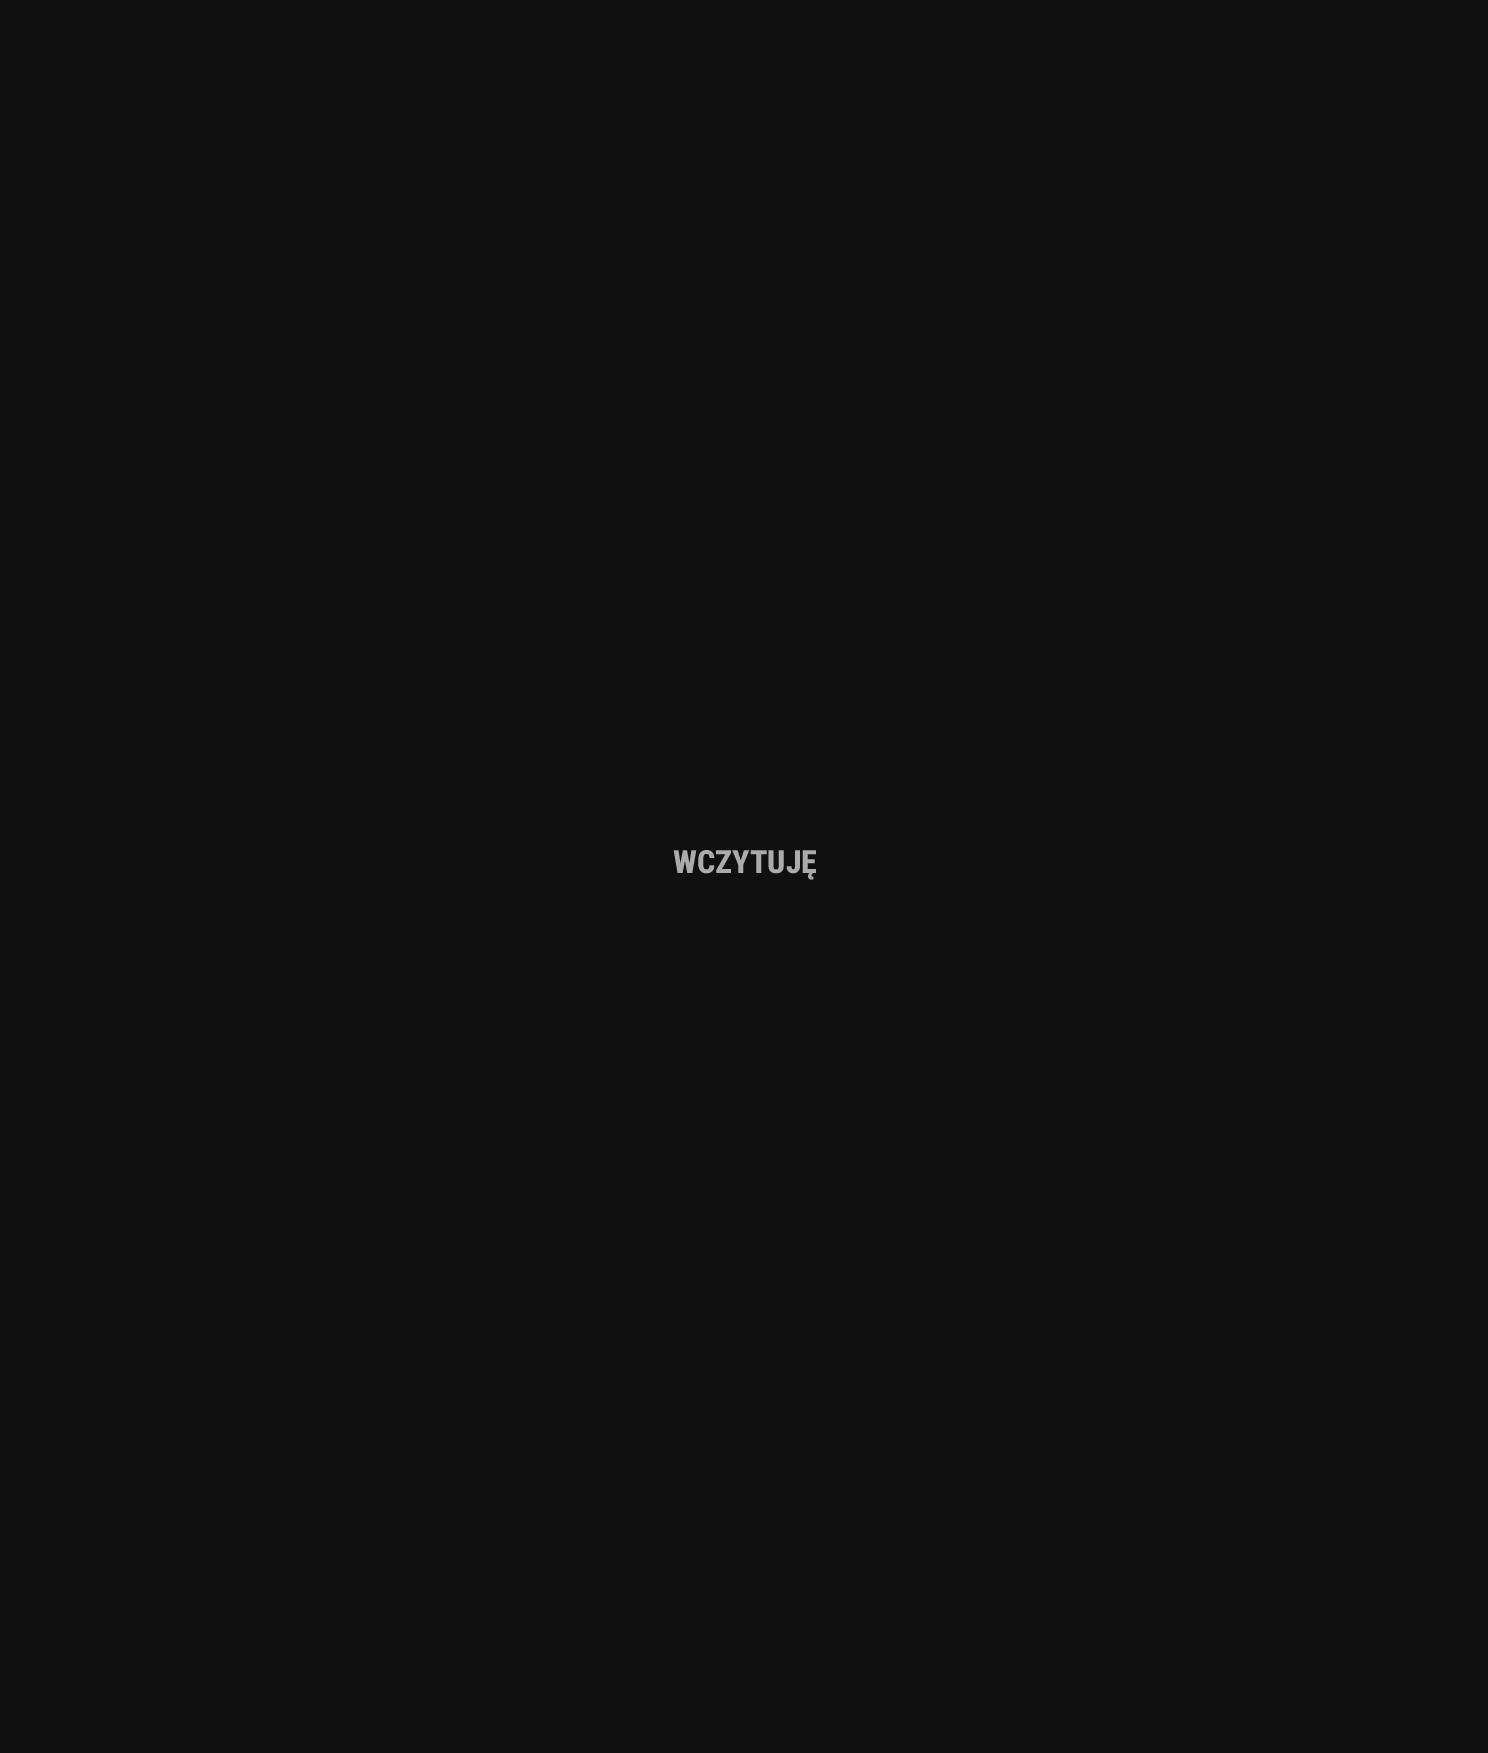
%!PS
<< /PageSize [1488 1753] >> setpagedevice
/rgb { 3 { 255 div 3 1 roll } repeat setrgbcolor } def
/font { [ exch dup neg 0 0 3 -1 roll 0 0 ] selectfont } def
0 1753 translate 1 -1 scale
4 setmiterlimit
16 16 16 rgb
0 0 1488 1753 rectfill
/RobotoCondensed-ExtraBold 32 font
171 171 171 rgb
673 873 moveto (WCZYTUJĘ) show
showpage
